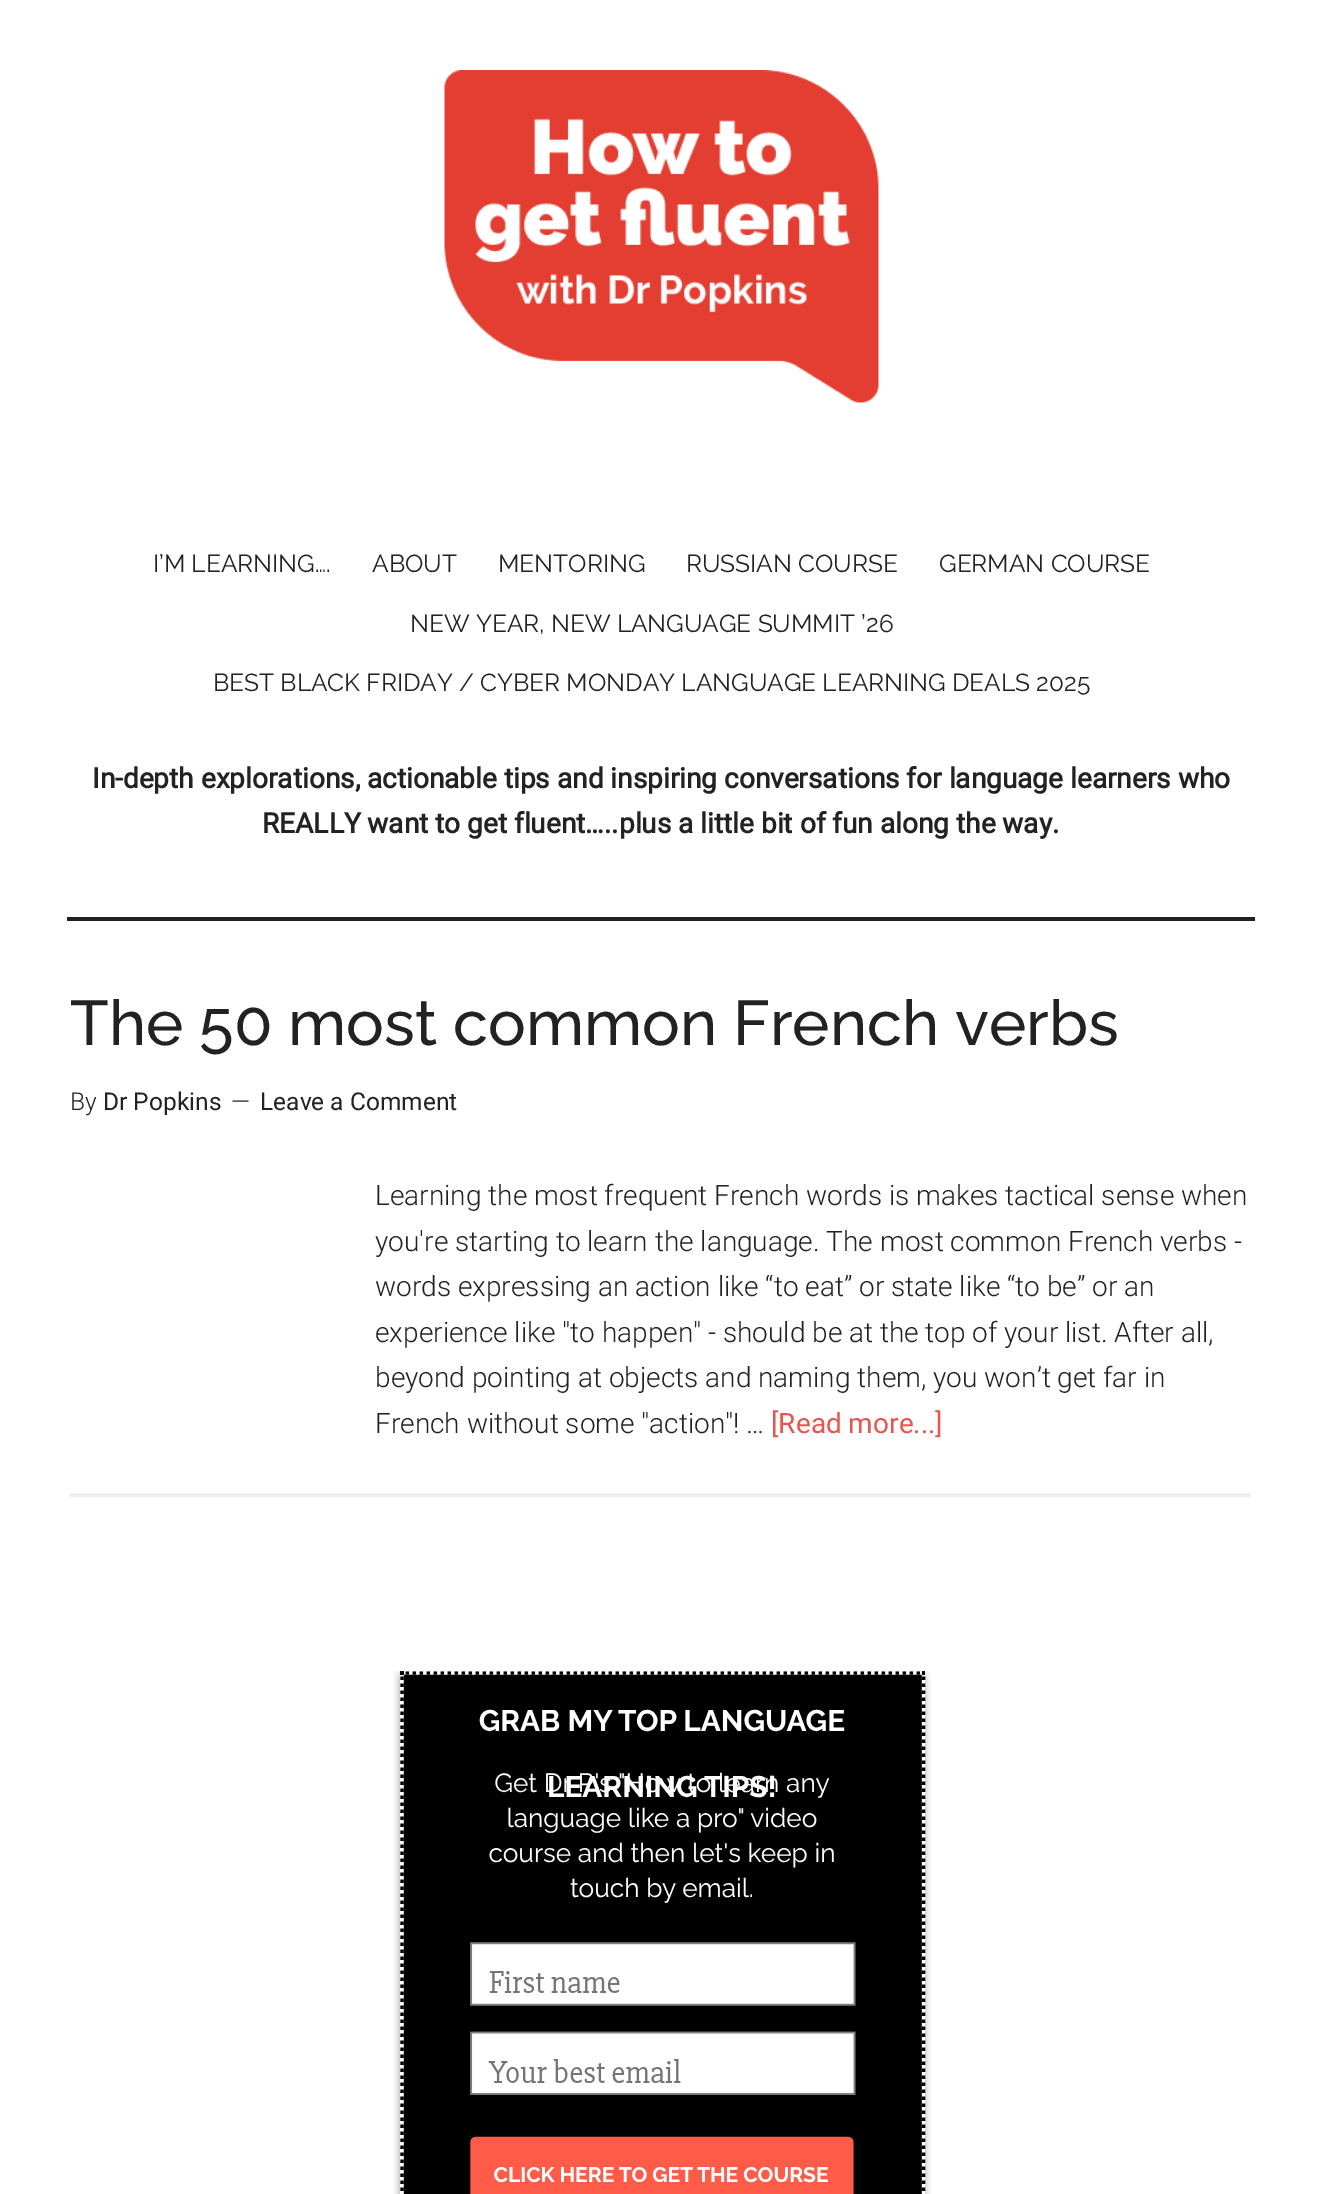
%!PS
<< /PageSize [1320 2194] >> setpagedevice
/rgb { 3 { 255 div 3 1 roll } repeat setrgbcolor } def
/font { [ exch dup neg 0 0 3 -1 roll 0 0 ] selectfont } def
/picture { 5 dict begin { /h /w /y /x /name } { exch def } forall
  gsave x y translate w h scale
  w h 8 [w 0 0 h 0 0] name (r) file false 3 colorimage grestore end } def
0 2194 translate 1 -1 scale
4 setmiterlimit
255 255 255 rgb
0 0 1320 2194 rectfill
34 34 34 rgb
67 917 1188 4 rectfill
(img/1.rgb) 444 70 435 333 picture
238 238 238 rgb
70 1493 1181 4 rectfill
(img/2.rgb) 393 1671 538 523 picture
/Raleway-Regular 24.5 font
34 34 34 rgb
[
  [(I’M LEARNING….) 153 572]
  [(ABOUT) 372 572]
  [(MENTORING) 498 572]
  [(RUSSIAN COURSE) 686 572]
  [(GERMAN COURSE) 939 572]
  [(NEW YEAR, NEW LANGUAGE SUMMIT ’26) 410 632]
  [(BEST BLACK FRIDAY / CYBER MONDAY LANGUAGE LEARNING DEALS 2025) 213 691]
] { aload pop moveto show } forall
/Roboto-Bold 28 font
92 788 moveto (In-depth explorations, actionable tips and inspiring conversations for language learners who) show
262 833 moveto (REALLY want to get fluent…..plus a little bit of fun along the way.) show
/Raleway-Medium 63 font
70 1045 moveto (The 50 most common French verbs) show
/Roboto-Light 24.5 font
70 1110 moveto (By) show
/Roboto-Regular 24.5 font
103 1110 moveto (Dr Popkins) show
/Roboto-Light 24.5 font
231 1110 moveto (—) show
/Roboto-Regular 24.5 font
260 1110 moveto (Leave a Comment) show
/Roboto-Light 28 font
[
  [(Learning the most frequent French words is makes tactical sense when) 375 1205]
  [(you're starting to learn the language. The most common French verbs -) 375 1251]
  [(words expressing an action like “to eat” or state like “to be” or an) 375 1296]
  [(experience like "to happen" - should be at the top of your list. After all,) 375 1342]
  [(beyond pointing at objects and naming them, you won’t get far in) 375 1387]
  [(French without some "action"! …) 375 1433]
] { aload pop moveto show } forall
/Roboto-Regular 28 font
232 85 78 rgb
771 1433 moveto ([Read more...]) show
showpage
